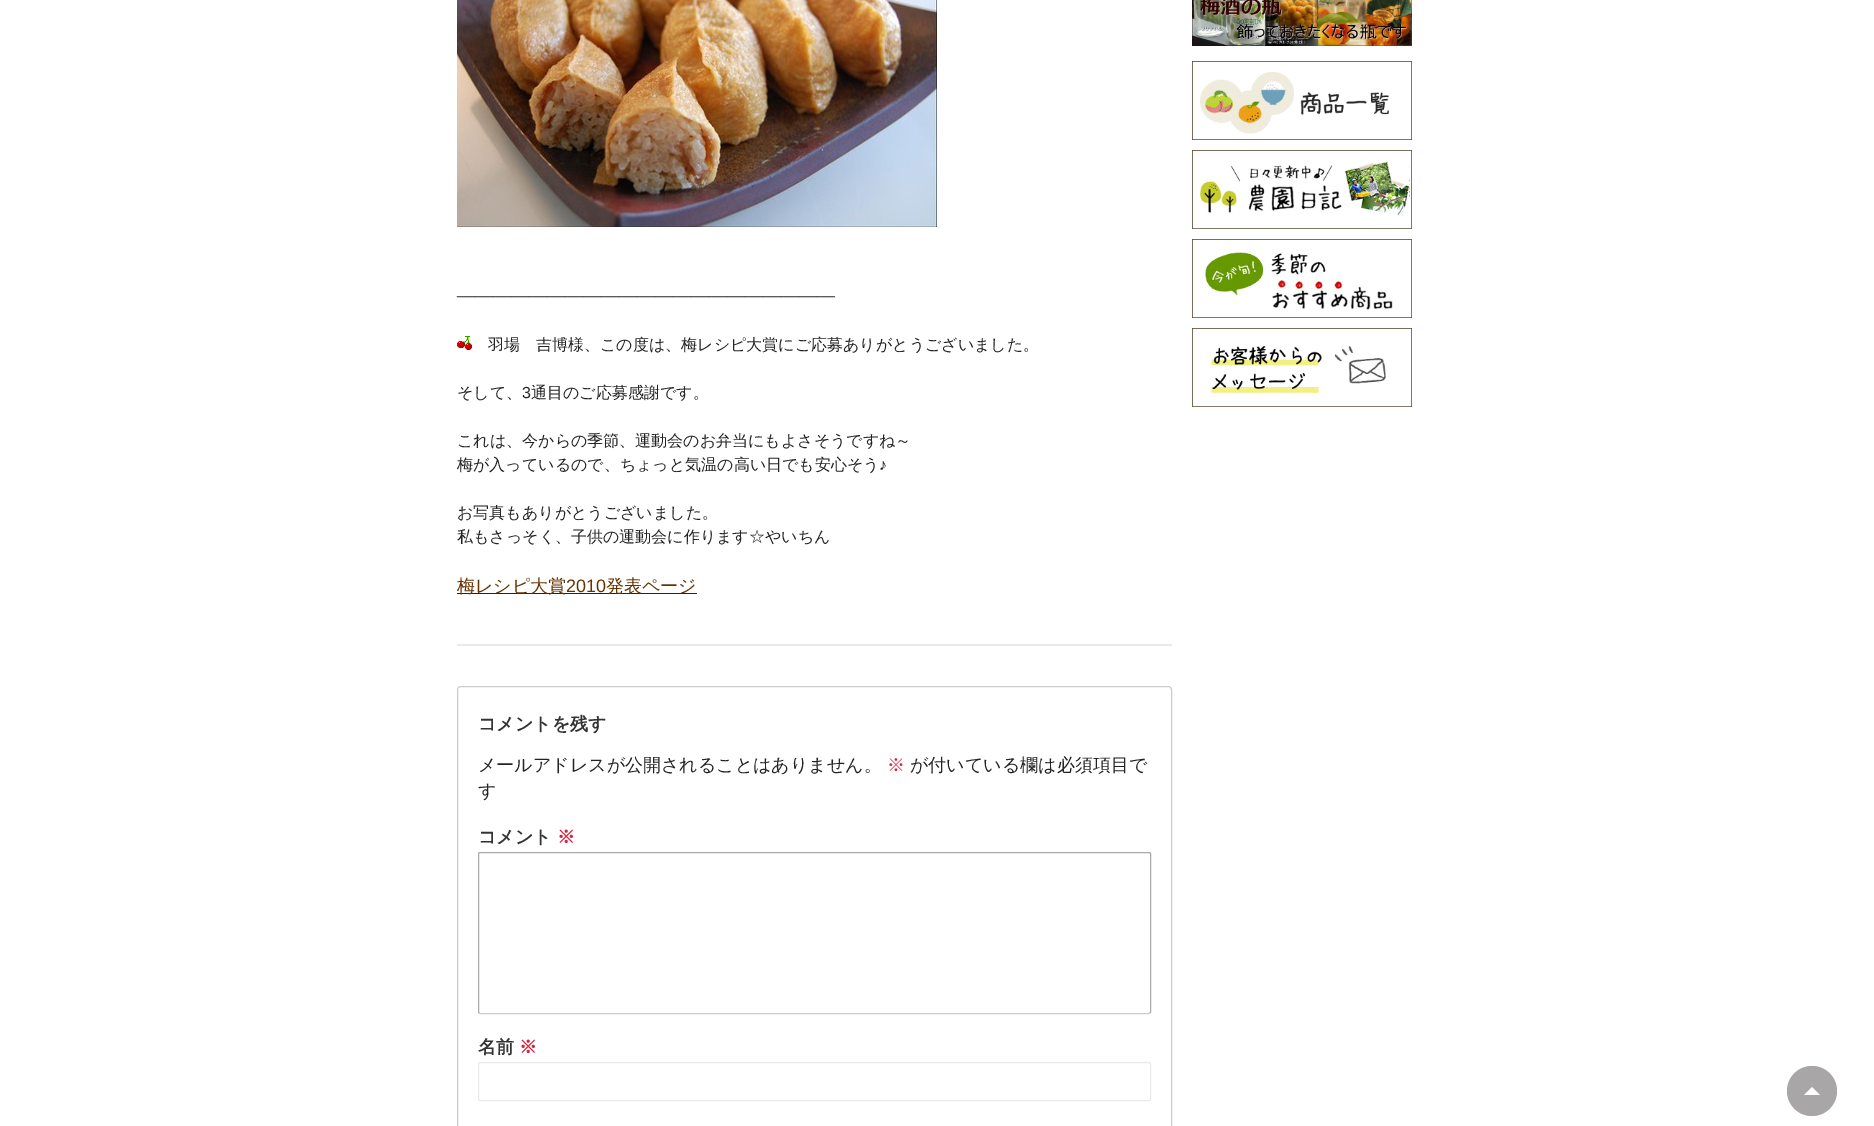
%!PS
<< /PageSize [1874 1126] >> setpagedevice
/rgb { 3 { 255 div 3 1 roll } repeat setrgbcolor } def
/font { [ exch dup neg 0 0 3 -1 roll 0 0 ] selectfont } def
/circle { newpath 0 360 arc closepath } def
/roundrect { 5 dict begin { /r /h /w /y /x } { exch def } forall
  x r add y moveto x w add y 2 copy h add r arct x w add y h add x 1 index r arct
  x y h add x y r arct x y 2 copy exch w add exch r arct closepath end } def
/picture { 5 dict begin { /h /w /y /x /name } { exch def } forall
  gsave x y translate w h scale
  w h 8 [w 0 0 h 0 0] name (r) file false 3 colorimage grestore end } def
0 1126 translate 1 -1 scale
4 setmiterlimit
255 255 255 rgb
0 0 1874 1126 rectfill
(img/1.rgb) 1192 0 220 46 picture
(img/2.rgb) 1192 61 220 79 picture
(img/3.rgb) 1192 150 220 79 picture
(img/4.rgb) 1192 239 220 79 picture
(img/5.rgb) 1192 328 220 79 picture
234 234 234 rgb
457 644 715 2 rectfill
(img/6.rgb) 457 0 480 227 picture
(img/7.rgb) 457 336 15 14 picture
35 35 35 rgb
457 593 240 1 rectfill
204 204 204 rgb
458.5 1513.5 moveto 458 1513 457.5 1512 457.5 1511 curveto 457.5 690 lineto 457.5 689 458 688 458.5 687.5 curveto 459 687 460 686.5 461 686.5 curveto 1168 686.5 lineto 1169 686.5 1170 687 1170.5 687.5 curveto 1171 688 1171.5 689 1171.5 690 curveto 1171.5 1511 lineto 1171.5 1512 1171 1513 1170.5 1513.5 curveto stroke
1150 1013 moveto 1149 1013.5 lineto 480 1013.5 lineto 479 1013 lineto stroke
170 170 170 rgb
479 1013 moveto 478.5 1012 lineto 478.5 854 lineto 478.5 853 479 852.5 480 852.5 curveto 1149 852.5 lineto 1150 852.5 1150.5 853 1150.5 854 curveto 1150.5 1012 lineto 1150 1013 lineto stroke
234 234 234 rgb
478.5 1062.5 672 38 1.5 roundrect stroke
168 166 166 rgb
1812 1091 25 circle fill
255 255 255 rgb
1820 1095 moveto 1804 1095 lineto 1812 1087 lineto closepath fill
/LiberationSerif-Regular 18 font
35 35 35 rgb
457 301 moveto (—————————————————————) show
/WenQuanYiZenHei-Medium 16 font
488 350 moveto (羽場　吉博様、この度は、梅レシピ大賞にご応募ありがとうございました。) show
457 398 moveto (そして、) show
/LiberationSans-Regular 16 font
522 398 moveto (3) show
/WenQuanYiZenHei-Medium 16 font
[
  [(通目のご応募感謝です。) 531 398]
  [(これは、今からの季節、運動会のお弁当にもよさそうですね～) 457 446]
  [(梅が入っているので、ちょっと気温の高い日でも安心そう) 457 470]
] { aload pop moveto show } forall
/LiberationSans-Regular 16 font
879 470 moveto (♪) show
/WenQuanYiZenHei-Medium 16 font
457 518 moveto (お写真もありがとうございました。) show
457 542 moveto (私もさっそく、子供の運動会に作ります☆やいちん) show
/WenQuanYiZenHei-Medium 18 font
102 51 0 rgb
457 592 moveto (梅レシピ大賞) show
/LiberationSans-Regular 18 font
566 592 moveto (2010) show
/WenQuanYiZenHei-Medium 18 font
606 592 moveto (発表ページ) show
/WenQuanYiZenHei-Bold 18 font
51 51 51 rgb
478 730 moveto (コメントを残す) show
/WenQuanYiZenHei-Medium 18 font
35 35 35 rgb
478 771 moveto (メールアドレスが公開されることはありません。) show
213 36 63 rgb
887 771 moveto (※) show
35 35 35 rgb
910 771 moveto (が付いている欄は必須項目で) show
478 797 moveto (す) show
/WenQuanYiZenHei-Bold 18 font
51 51 51 rgb
478 843 moveto (コメント) show
213 36 63 rgb
557 843 moveto (※) show
51 51 51 rgb
478 1053 moveto (名前) show
213 36 63 rgb
519 1053 moveto (※) show
showpage
